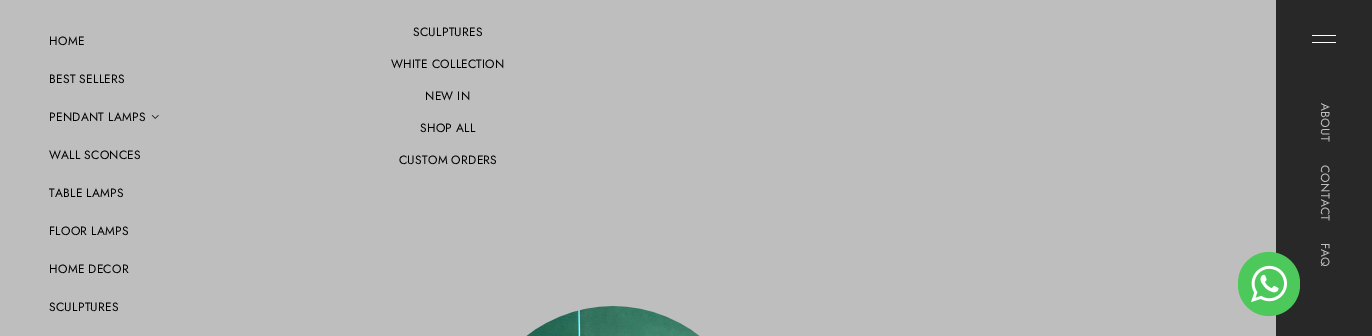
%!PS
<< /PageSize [1372 336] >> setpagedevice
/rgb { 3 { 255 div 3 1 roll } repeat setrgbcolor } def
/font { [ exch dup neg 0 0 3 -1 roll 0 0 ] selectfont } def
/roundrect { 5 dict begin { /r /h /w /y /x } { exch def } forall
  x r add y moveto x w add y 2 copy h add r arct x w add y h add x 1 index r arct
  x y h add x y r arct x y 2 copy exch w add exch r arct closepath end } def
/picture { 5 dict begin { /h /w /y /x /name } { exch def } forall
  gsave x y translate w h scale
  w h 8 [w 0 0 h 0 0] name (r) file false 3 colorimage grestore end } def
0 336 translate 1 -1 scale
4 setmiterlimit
190 190 190 rgb
0 0 1372 336 rectfill
(img/1.rgb) 151 115 8 4 picture
(img/2.rgb) 526 306 174 30 picture
40 40 40 rgb
1276 0 96 336 rectfill
255 255 255 rgb
1312 35 moveto 1312 36 lineto 1336 36 lineto 1336 35 lineto closepath 1312 43 moveto 1336 43 lineto 1336 42 lineto 1312 42 lineto closepath fill
77 201 91 rgb
1238 252 62 64 31 roundrect fill
(img/3.rgb) 1251 265 36 38 picture
/Jost-Regular 12 font
0 0 0 rgb
49 45 moveto 0.25 0 (HOME) ashow
49 83 moveto 0.25 0 (BEST SELLERS) ashow
49 121 moveto 0.25 0 (PENDANT LAMPS) ashow
49 159 moveto 0.25 0 (WALL SCONCES) ashow
49 197 moveto 0.25 0 (TABLE LAMPS) ashow
49 235 moveto 0.25 0 (FLOOR LAMPS) ashow
49 273 moveto 0.25 0 (HOME DECOR) ashow
49 311 moveto 0.25 0 (SCULPTURES) ashow
413 36 moveto 0.25 0 (SCULPTURES) ashow
391 68 moveto 0.25 0 (WHITE COLLECTION) ashow
425 100 moveto 0.25 0 (NEW IN) ashow
420 132 moveto 0.25 0 (SHOP ALL) ashow
399 164 moveto 0.25 0 (CUSTOM ORDERS) ashow
191 191 191 rgb
gsave 1321 103 translate 90 rotate 0 0 moveto 0.25 0 (ABOUT) ashow grestore
gsave 1321 165 translate 90 rotate 0 0 moveto 0.25 0 (CONTACT) ashow grestore
gsave
1316 243 17 23 rectclip
gsave 1321 243 translate 90 rotate 0 0 moveto 0.25 0 (FAQ) ashow grestore
grestore
showpage
